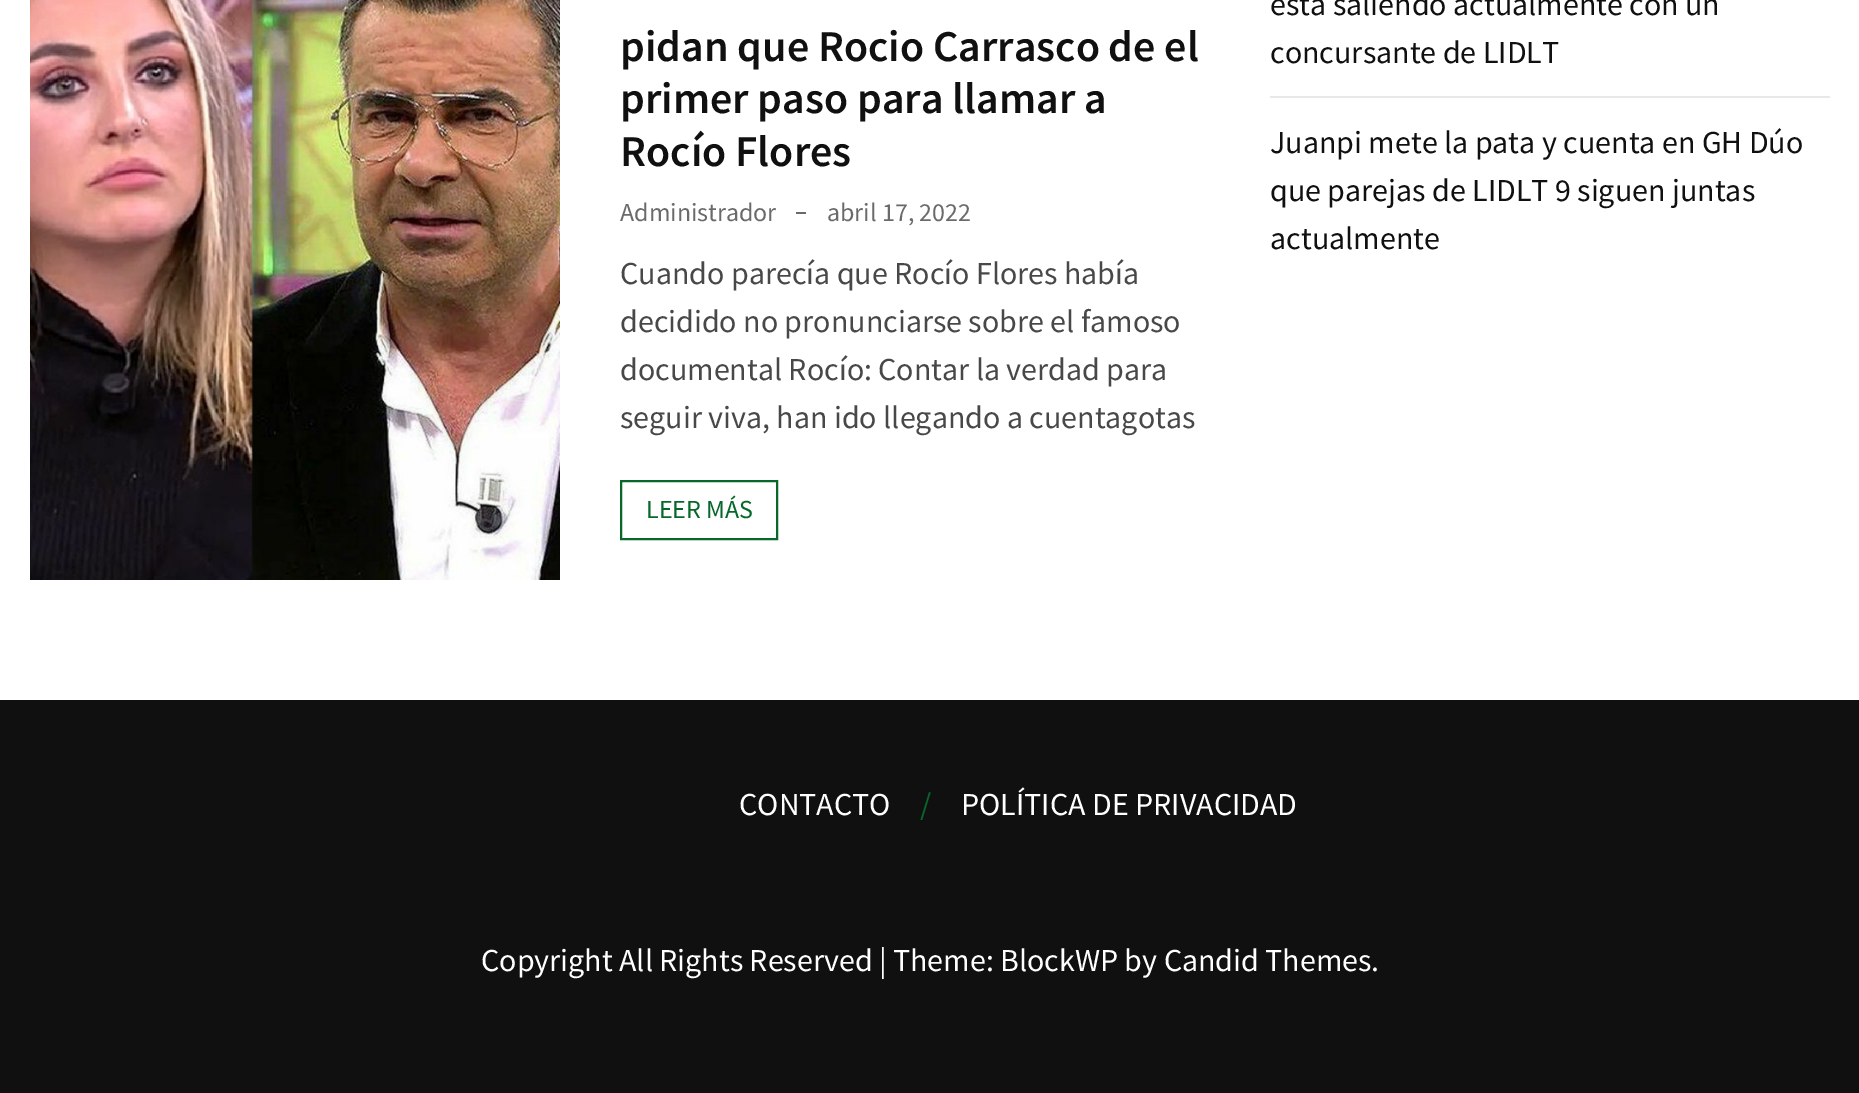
%!PS
<< /PageSize [1859 1093] >> setpagedevice
/rgb { 3 { 255 div 3 1 roll } repeat setrgbcolor } def
/font { [ exch dup neg 0 0 3 -1 roll 0 0 ] selectfont } def
/picture { 5 dict begin { /h /w /y /x /name } { exch def } forall
  gsave x y translate w h scale
  w h 8 [w 0 0 h 0 0] name (r) file false 3 colorimage grestore end } def
0 1093 translate 1 -1 scale
4 setmiterlimit
255 255 255 rgb
0 0 1859 1093 rectfill
(img/1.rgb) 30 0 530 580 picture
106 106 106 rgb
796 212 10 2 rectfill
7 104 42 rgb
2 setlinewidth
621 481 156 58 rectstroke
232 232 232 rgb
1270 96 560 2 rectfill
16 16 16 rgb
0 700 1859 393 rectfill
/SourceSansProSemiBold-SemiBold 44 font
[
  [(pidan que Rocio Carrasco de el) 620 61]
  [(primer paso para llamar a) 620 113]
  [(Rocío Flores) 620 166]
] { aload pop moveto show } forall
/SourceSansPro-Regular 26 font
106 106 106 rgb
620 221 moveto (Administrador) show
827 221 moveto (abril 17, 2022) show
/SourceSansPro-Regular 32 font
72 72 72 rgb
[
  [(Cuando parecía que Rocío Flores había) 620 284]
  [(decidido no pronunciarse sobre el famoso) 620 332]
  [(documental Rocío: Contar la verdad para) 620 380]
  [(seguir viva, han ido llegando a cuentagotas) 620 428]
] { aload pop moveto show } forall
/SourceSansPro-Regular 26 font
7 104 42 rgb
646 518 moveto (LEER MÁS) show
/SourceSansPro-Regular 32 font
16 16 16 rgb
[
  [(esta saliendo actualmente con un) 1270 15]
  [(concursante de LIDLT) 1270 63]
  [(Juanpi mete la pata y cuenta en GH Dúo) 1270 153]
  [(que parejas de LIDLT 9 siguen juntas) 1270 201]
  [(actualmente) 1270 249]
] { aload pop moveto show } forall
255 255 255 rgb
739 815 moveto (CONTACTO) show
7 104 42 rgb
920 815 moveto (/) show
255 255 255 rgb
961 815 moveto (POLÍTICA DE PRIVACIDAD) show
481 971 moveto (Copyright All Rights Reserved | Theme: BlockWP by Candid Themes.) show
showpage
